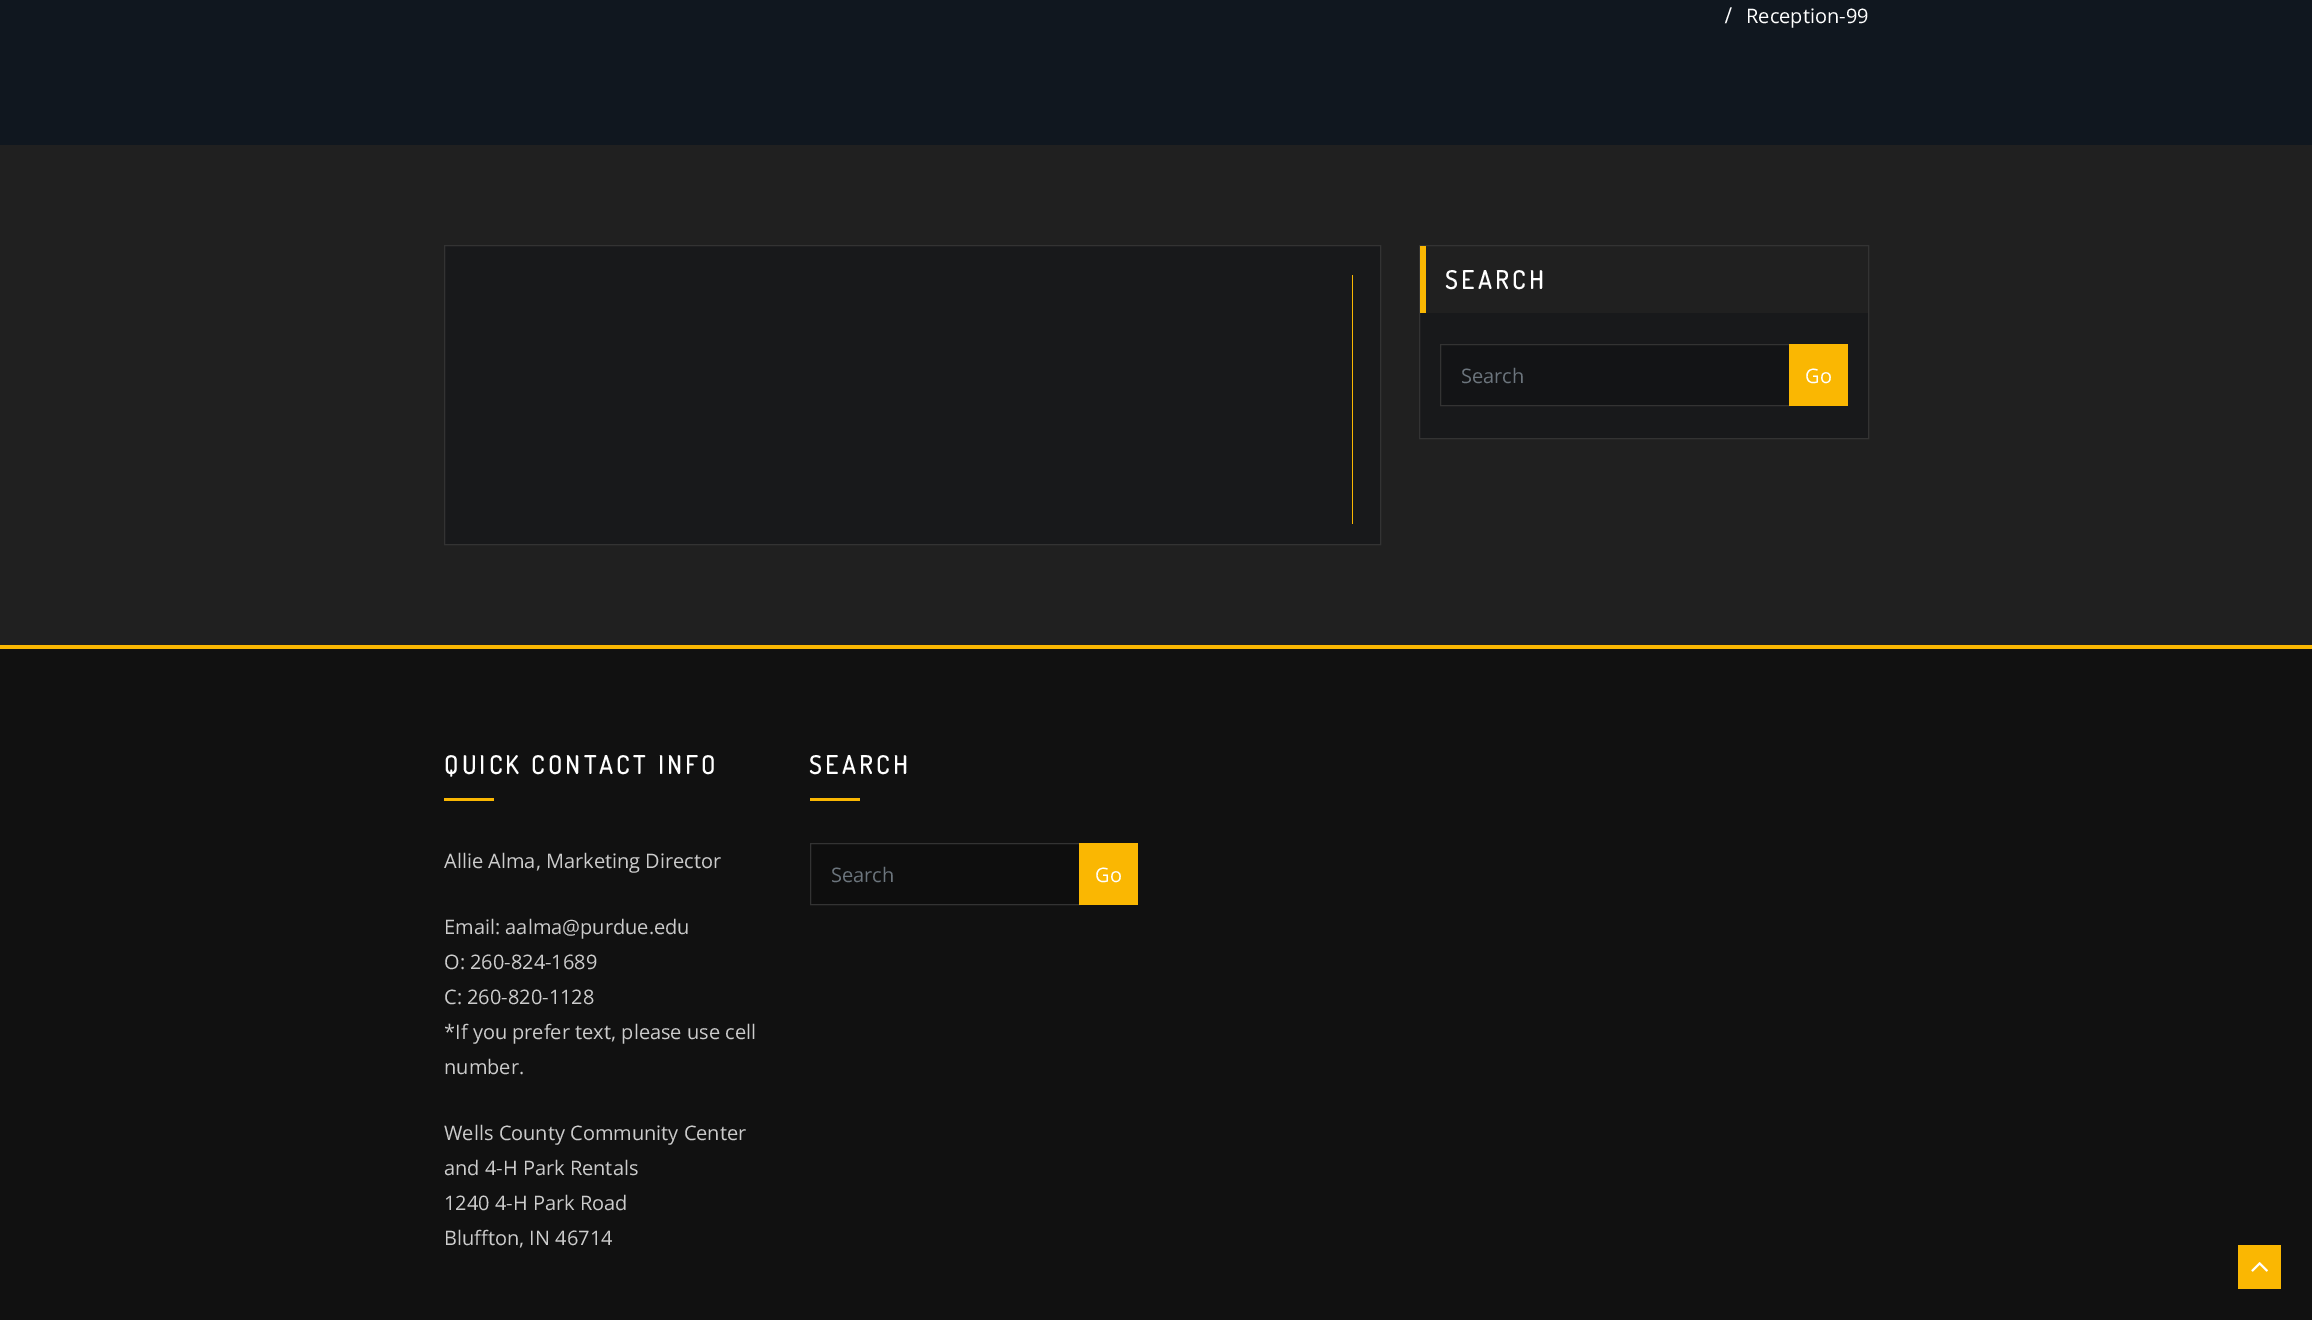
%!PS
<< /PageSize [2312 1320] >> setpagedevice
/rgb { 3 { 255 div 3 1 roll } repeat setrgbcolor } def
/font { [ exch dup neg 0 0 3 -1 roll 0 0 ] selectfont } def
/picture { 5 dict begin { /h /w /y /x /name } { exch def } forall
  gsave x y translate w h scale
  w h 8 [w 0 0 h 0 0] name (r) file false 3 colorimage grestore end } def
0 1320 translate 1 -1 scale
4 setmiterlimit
16 23 31 rgb
0 0 2312 1320 rectfill
32 32 32 rgb
0 145 2312 500 rectfill
24 25 27 rgb
444.5 245.5 moveto 1380.5 245.5 lineto 1380.5 544.5 lineto 444.5 544.5 lineto closepath gsave fill grestore
51 51 51 rgb
stroke
gsave
473 274 880 250 rectclip
250 183 2 rgb
473 524 moveto 473 525 lineto 1353 525 lineto 1353 275 lineto 1352 275 lineto 1352 524 lineto closepath fill
grestore
24 25 27 rgb
1420 313 448 125 rectfill
51 51 51 rgb
1419.5 245.5 449 193 rectstroke
[
  [1420 246 6 67 250 183 2]
  [1441 346 348 59 19 20 22]
  [1441 345 348 1 18 19 20]
] { aload pop rgb rectfill } forall
51 51 51 rgb
1440.5 344.5 349 61 rectstroke
[
  [1789 344 59 62 250 183 2]
  [0 649 2312 671 17 17 17]
  [0 645 2312 4 250 183 2]
  [444 798 50 3 250 183 2]
  [810 798 50 3 250 183 2]
] { aload pop rgb rectfill } forall
14 14 14 rgb
810.5 843.5 moveto 1079.5 843.5 lineto 1079.5 904.5 lineto 810.5 904.5 lineto closepath gsave fill grestore
51 51 51 rgb
stroke
250 183 2 rgb
1079 843 59 62 rectfill
2238 1245 43 44 rectfill
(img/1.rgb) 2251 1262 17 10 picture
/LiberationSerif-Bold 24 font
255 255 255 rgb
1725 23 moveto 2 0 (/) ashow
/OpenSans-Regular 20 font
1746 23 moveto (Reception-99) show
/Dosis-Bold 25 font
1445 289 moveto 3.75 0 (SEARCH) ashow
/OpenSans-Regular 20 font
108 117 125 rgb
1461 383 moveto (Search) show
255 255 255 rgb
1805 383 moveto (Go) show
/Dosis-Bold 25 font
444 774 moveto 3.75 0 (QUICK CONTACT INFO) ashow
/OpenSans-Regular 20 font
204 204 204 rgb
[
  [(Allie Alma, Marketing Director) 444 868]
  [(Email: aalma@purdue.edu) 444 934]
  [(O: 260-824-1689) 444 969]
  [(C: 260-820-1128) 444 1004]
  [(*If you prefer text, please use cell) 444 1039]
  [(number.) 444 1074]
  [(Wells County Community Center) 444 1140]
  [(and 4-H Park Rentals) 444 1175]
  [(1240 4-H Park Road) 444 1210]
  [(Bluffton, IN 46714) 444 1245]
] { aload pop moveto show } forall
/Dosis-Bold 25 font
255 255 255 rgb
809 774 moveto 3.75 0 (SEARCH) ashow
/OpenSans-Regular 20 font
108 117 125 rgb
831 882 moveto (Search) show
255 255 255 rgb
1095 882 moveto (Go) show
showpage
